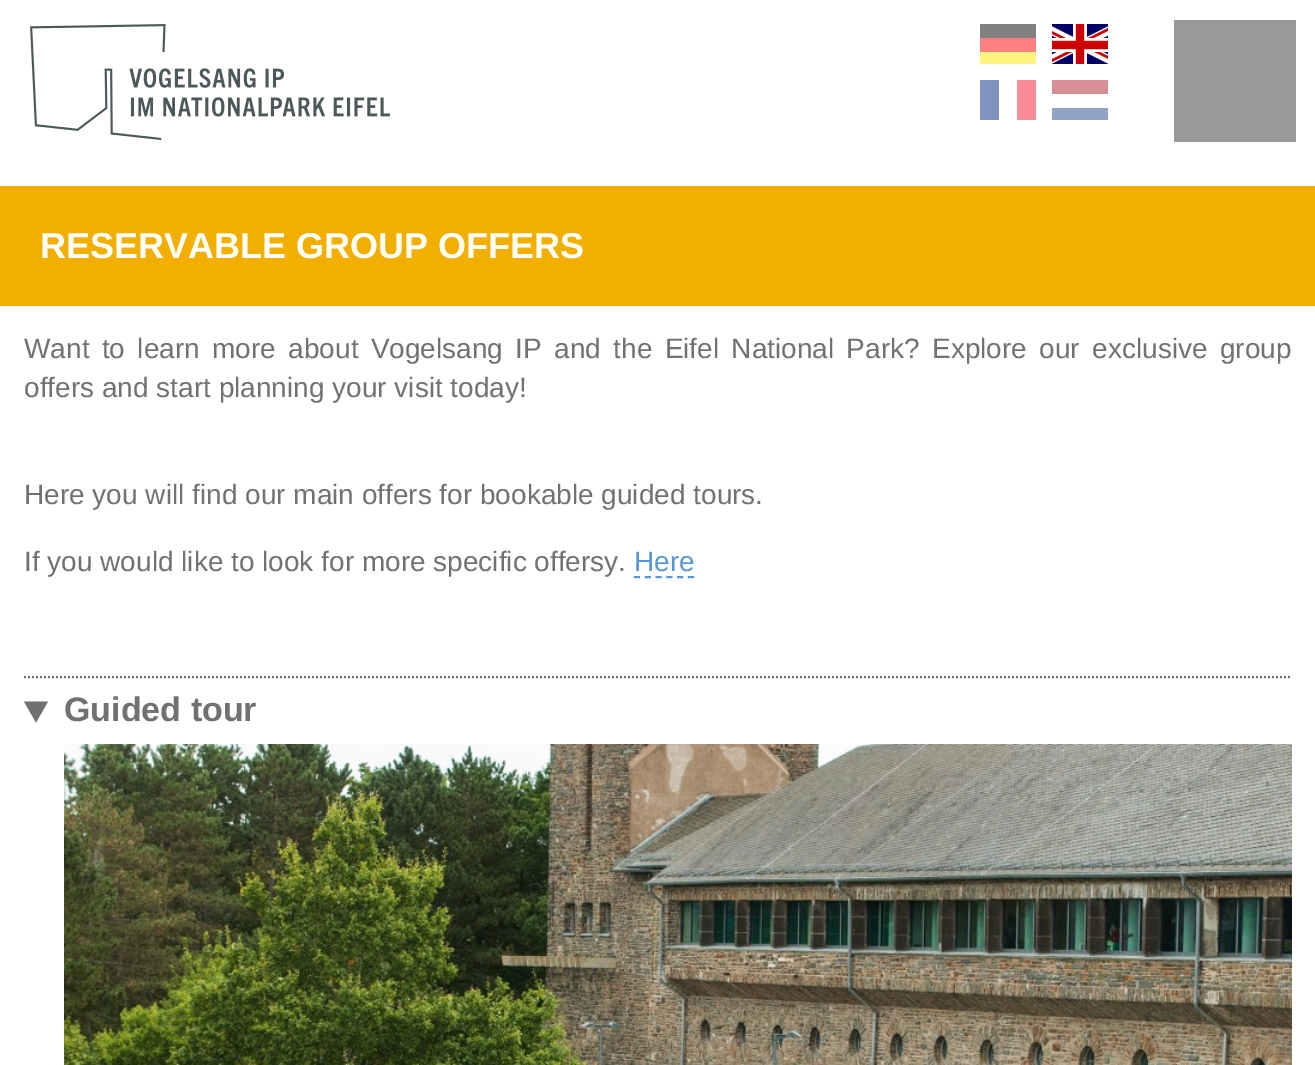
%!PS
<< /PageSize [1315 1065] >> setpagedevice
/rgb { 3 { 255 div 3 1 roll } repeat setrgbcolor } def
/font { [ exch dup neg 0 0 3 -1 roll 0 0 ] selectfont } def
/picture { 5 dict begin { /h /w /y /x /name } { exch def } forall
  gsave x y translate w h scale
  w h 8 [w 0 0 h 0 0] name (r) file false 3 colorimage grestore end } def
0 1065 translate 1 -1 scale
4 setmiterlimit
255 255 255 rgb
0 0 1315 1065 rectfill
(img/1.rgb) 30 24 360 116 picture
[
  [980 52 56 12 255 243 128]
  [980 24 56 14 128 128 128]
  [980 38 56 14 255 128 128]
] { aload pop rgb rectfill } forall
(img/2.rgb) 1052 24 56 40 picture
[
  [980 80 19 40 128 147 191]
  [1017 80 19 40 249 140 152]
  [1052 108 56 12 144 163 197]
  [1052 80 56 14 215 142 148]
  [1174 20 122 122 153 153 153]
  [0 186 1315 120 242 175 0]
] { aload pop rgb rectfill } forall
88 151 213 rgb
2 setlinewidth
[6 4.8] 0 setdash
634 577 moveto 694 577 lineto stroke
112 113 115 rgb
[2 2] 0 setdash
24 677 moveto 1292 677 lineto stroke
111 112 114 rgb
24 701.5 moveto 48 701.5 lineto 36 722.5 lineto closepath fill
(img/3.rgb) 64 744 1228 321 picture
/LiberationSans-Bold 36 font
255 255 255 rgb
40 258 moveto (RESERVABLE GROUP OFFERS) show
/LiberationSans-Regular 28 font
112 113 115 rgb
24 358 moveto 4.6 0 32 (Want to learn more about Vogelsang IP and the Eifel National Park? Explore our exclusive group) widthshow
[
  [(offers and start planning your visit today!) 24 397]
  [(Here you will find our main offers for bookable guided tours.) 24 504]
  [(If you would like to look for more specific offersy.) 24 571]
] { aload pop moveto show } forall
88 151 213 rgb
634 571 moveto (Here) show
/LiberationSans-Bold 34 font
112 113 115 rgb
64 721 moveto (Guided tour) show
showpage
